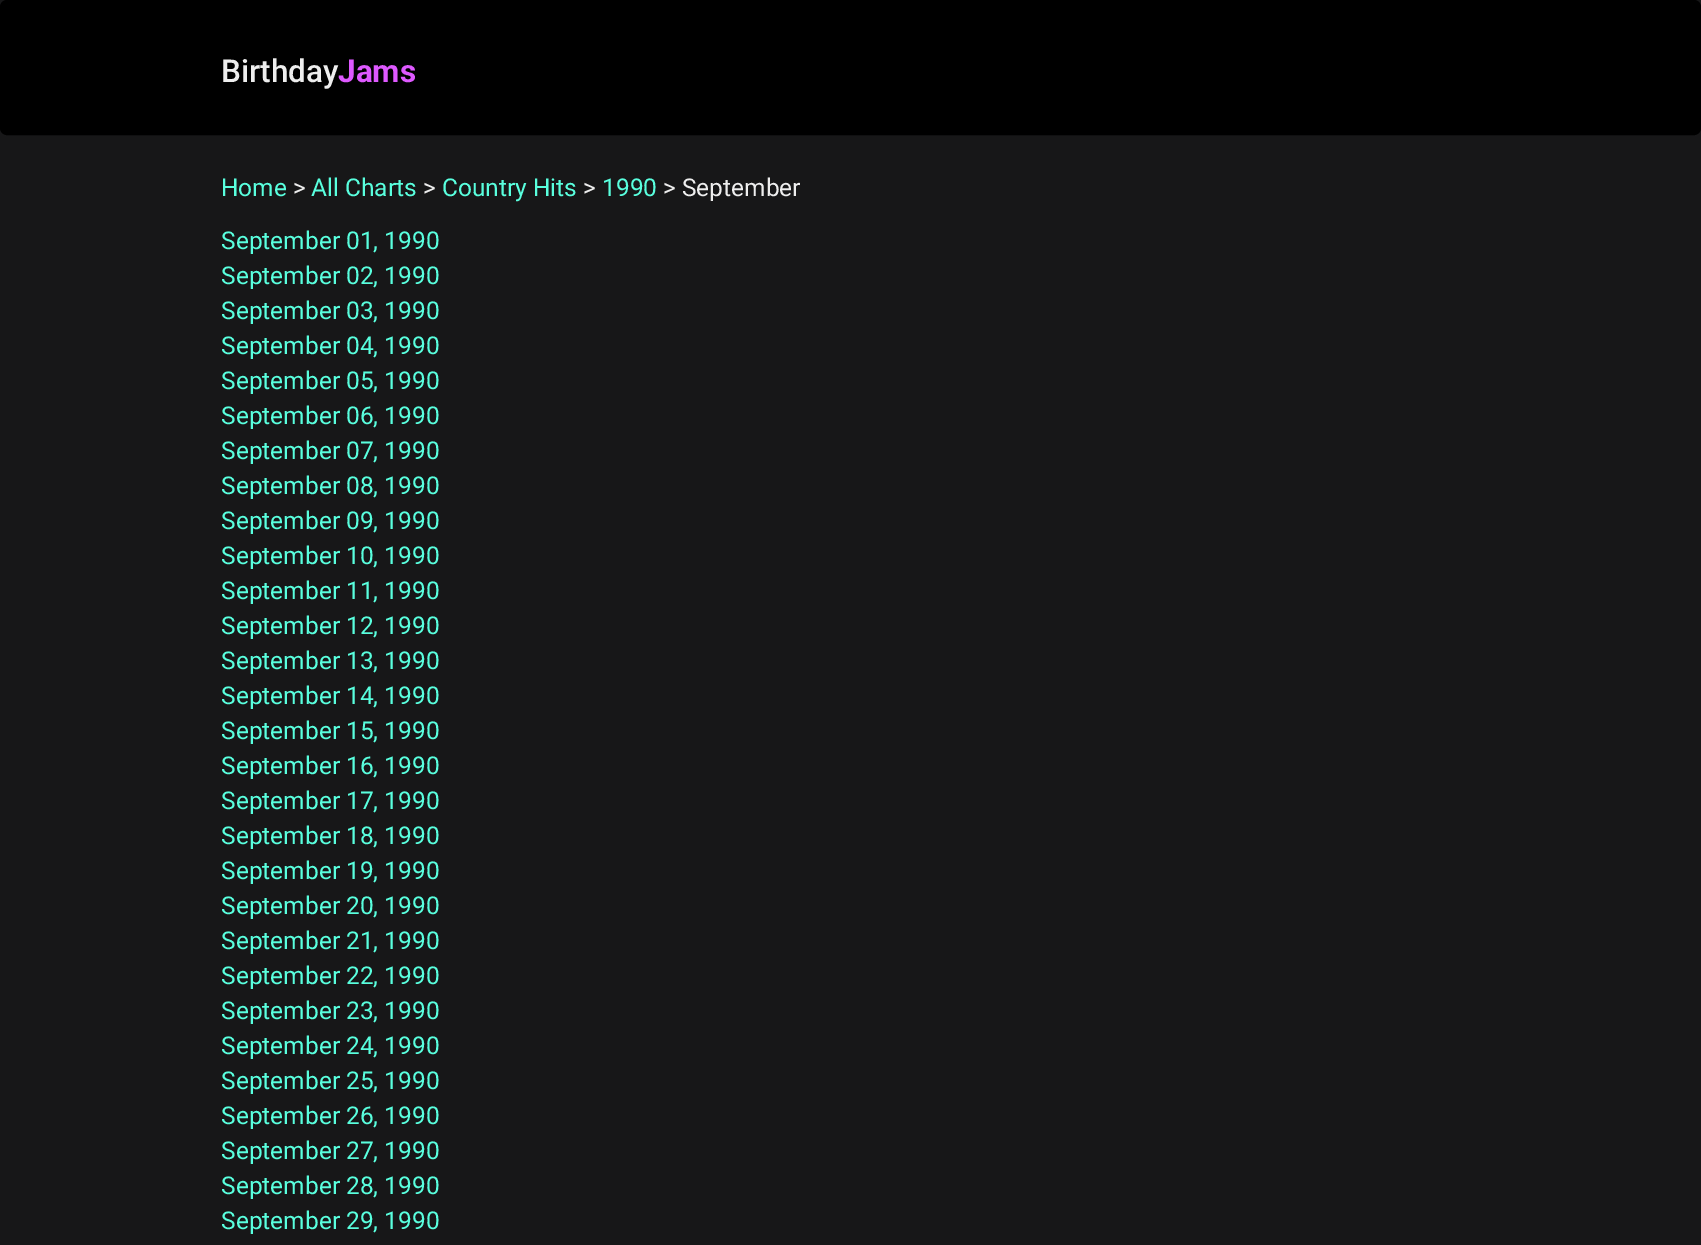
%!PS
<< /PageSize [1701 1245] >> setpagedevice
/rgb { 3 { 255 div 3 1 roll } repeat setrgbcolor } def
/font { [ exch dup neg 0 0 3 -1 roll 0 0 ] selectfont } def
/roundrect { 5 dict begin { /r /h /w /y /x } { exch def } forall
  x r add y moveto x w add y 2 copy h add r arct x w add y h add x 1 index r arct
  x y h add x y r arct x y 2 copy exch w add exch r arct closepath end } def
0 1245 translate 1 -1 scale
4 setmiterlimit
23 23 24 rgb
0 0 1701 1245 rectfill
0 0 0 rgb
1 1 1699 133 6 roundrect gsave fill grestore
2 setlinewidth
stroke
/Roboto-Medium 31.5 font
238 238 238 rgb
221 82 moveto (Birthday) show
/Roboto-Bold 31.5 font
222 89 255 rgb
338 82 moveto (Jams) show
/Roboto-Regular 24.5 font
89 255 222 rgb
221 196 moveto (Home) show
238 238 238 rgb
293 196 moveto (>) show
89 255 222 rgb
311 196 moveto (All Charts) show
238 238 238 rgb
423 196 moveto (>) show
89 255 222 rgb
442 196 moveto (Country Hits) show
238 238 238 rgb
583 196 moveto (>) show
89 255 222 rgb
602 196 moveto (1990) show
238 238 238 rgb
663 196 moveto (> September) show
89 255 222 rgb
[
  [(September 01, 1990) 221 249]
  [(September 02, 1990) 221 284]
  [(September 03, 1990) 221 319]
  [(September 04, 1990) 221 354]
  [(September 05, 1990) 221 389]
  [(September 06, 1990) 221 424]
  [(September 07, 1990) 221 459]
  [(September 08, 1990) 221 494]
  [(September 09, 1990) 221 529]
  [(September 10, 1990) 221 564]
  [(September 11, 1990) 221 599]
  [(September 12, 1990) 221 634]
  [(September 13, 1990) 221 669]
  [(September 14, 1990) 221 704]
  [(September 15, 1990) 221 739]
  [(September 16, 1990) 221 774]
  [(September 17, 1990) 221 809]
  [(September 18, 1990) 221 844]
  [(September 19, 1990) 221 879]
  [(September 20, 1990) 221 914]
  [(September 21, 1990) 221 949]
  [(September 22, 1990) 221 984]
  [(September 23, 1990) 221 1019]
  [(September 24, 1990) 221 1054]
  [(September 25, 1990) 221 1089]
  [(September 26, 1990) 221 1124]
  [(September 27, 1990) 221 1159]
  [(September 28, 1990) 221 1194]
  [(September 29, 1990) 221 1229]
] { aload pop moveto show } forall
showpage
